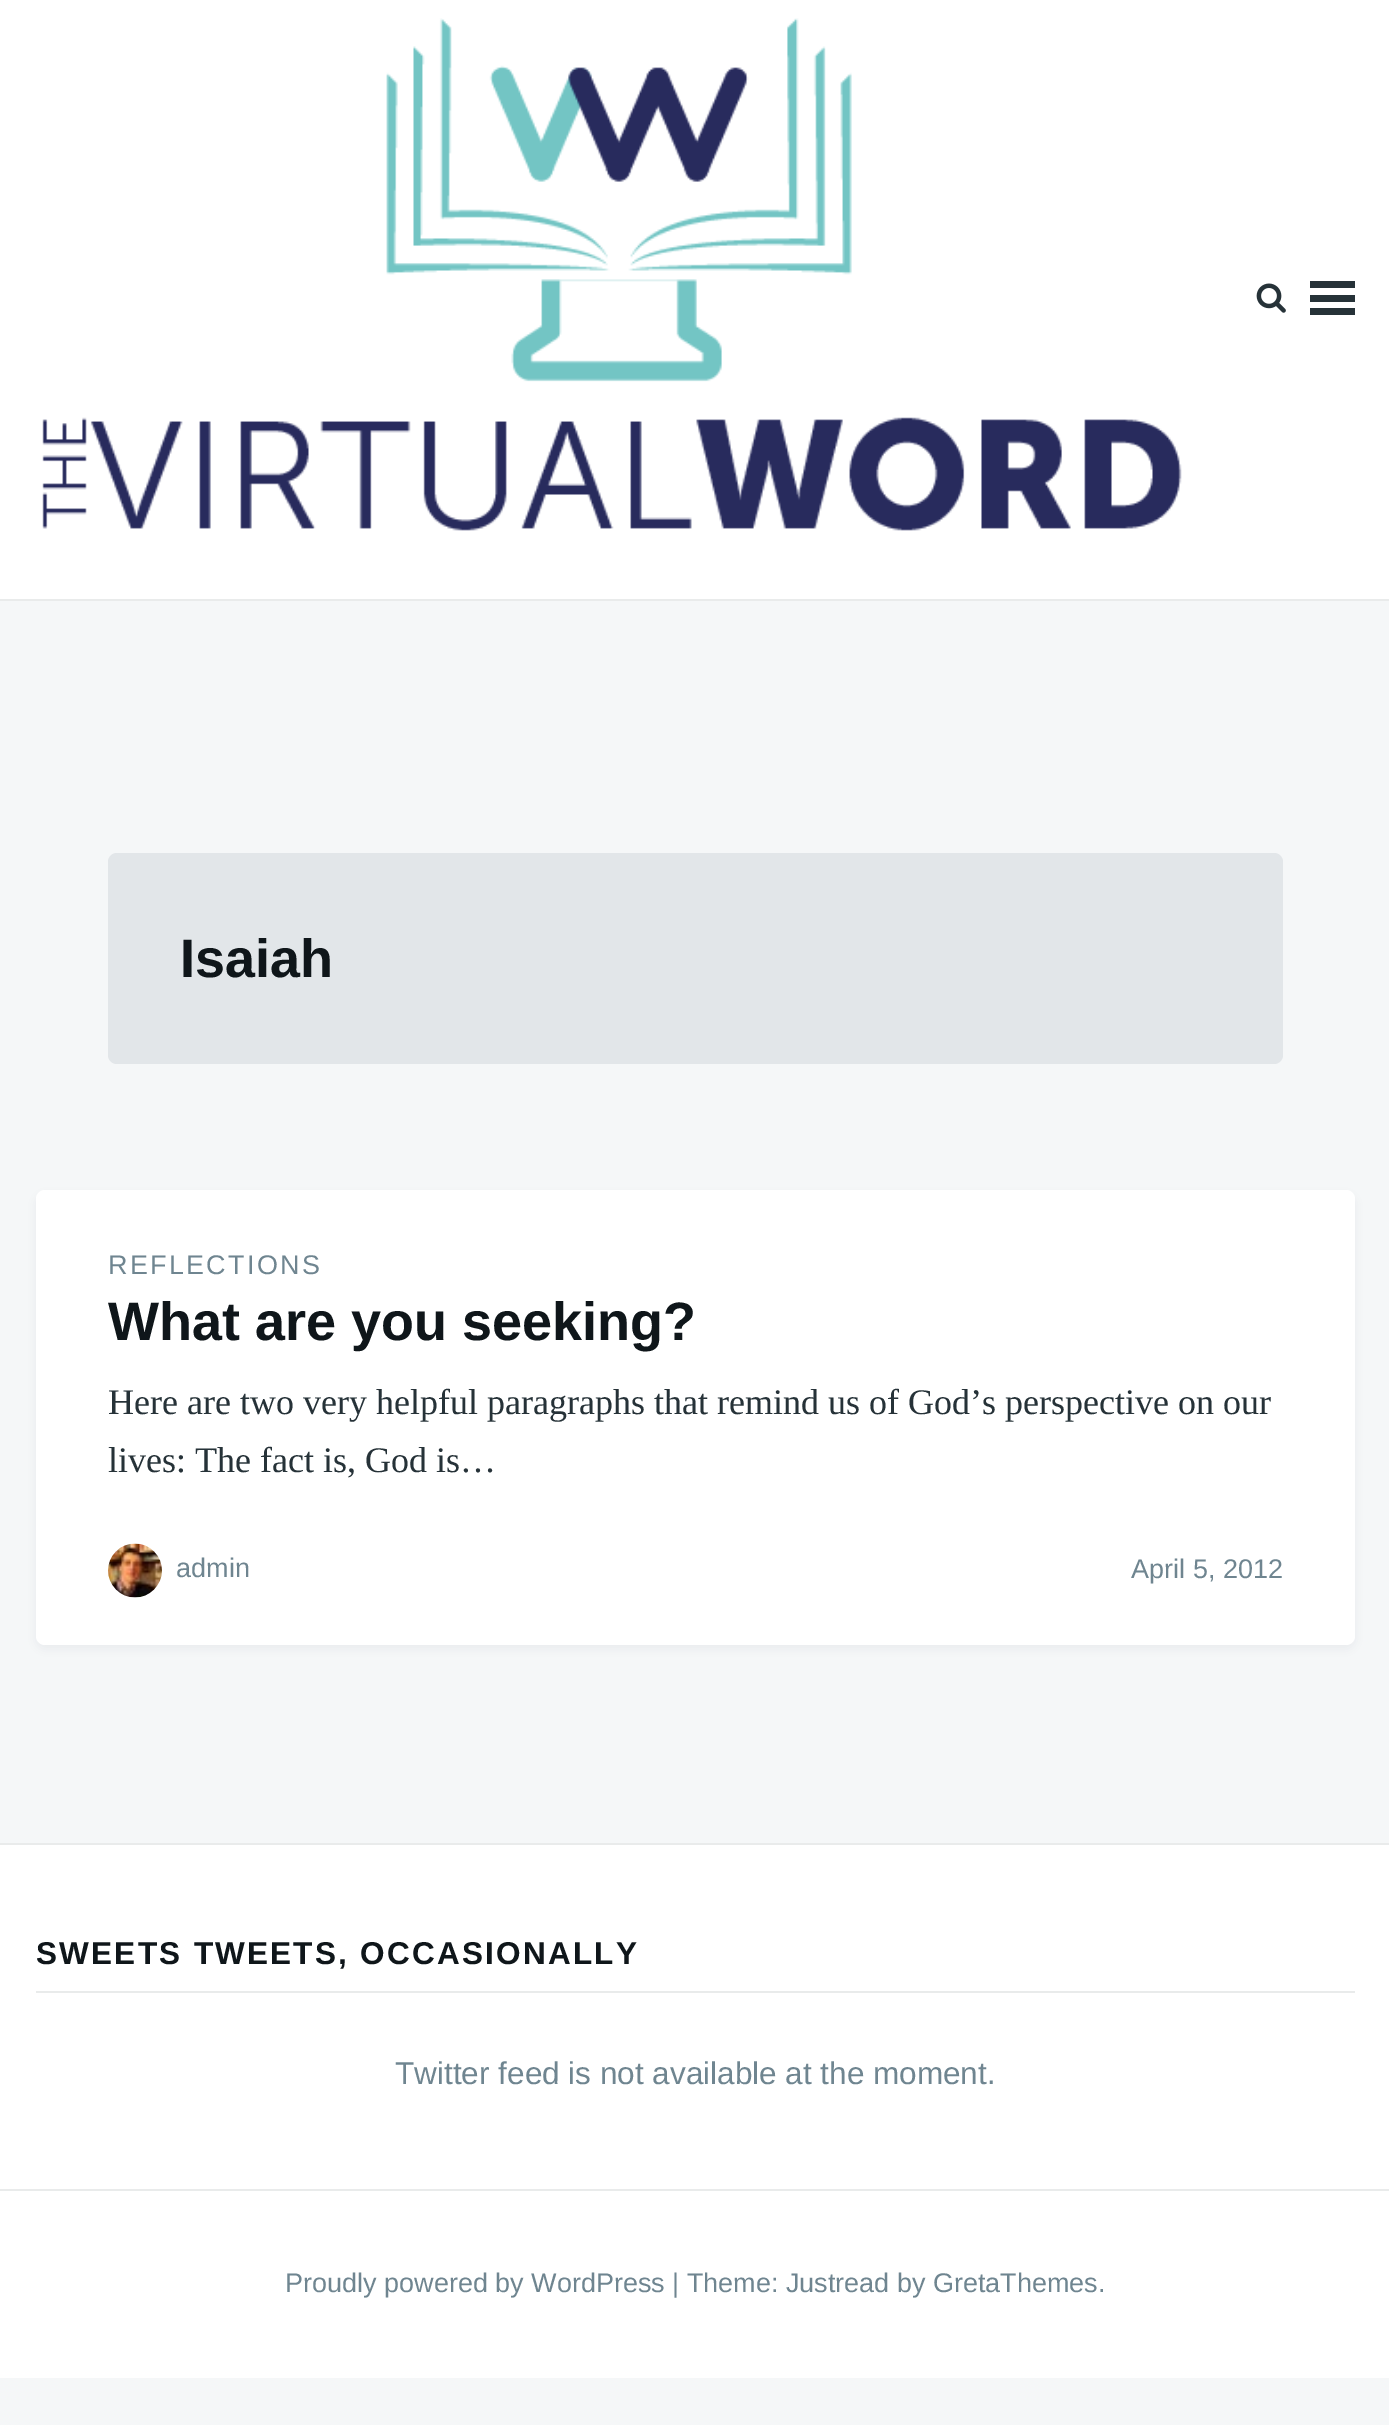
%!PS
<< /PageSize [1389 2425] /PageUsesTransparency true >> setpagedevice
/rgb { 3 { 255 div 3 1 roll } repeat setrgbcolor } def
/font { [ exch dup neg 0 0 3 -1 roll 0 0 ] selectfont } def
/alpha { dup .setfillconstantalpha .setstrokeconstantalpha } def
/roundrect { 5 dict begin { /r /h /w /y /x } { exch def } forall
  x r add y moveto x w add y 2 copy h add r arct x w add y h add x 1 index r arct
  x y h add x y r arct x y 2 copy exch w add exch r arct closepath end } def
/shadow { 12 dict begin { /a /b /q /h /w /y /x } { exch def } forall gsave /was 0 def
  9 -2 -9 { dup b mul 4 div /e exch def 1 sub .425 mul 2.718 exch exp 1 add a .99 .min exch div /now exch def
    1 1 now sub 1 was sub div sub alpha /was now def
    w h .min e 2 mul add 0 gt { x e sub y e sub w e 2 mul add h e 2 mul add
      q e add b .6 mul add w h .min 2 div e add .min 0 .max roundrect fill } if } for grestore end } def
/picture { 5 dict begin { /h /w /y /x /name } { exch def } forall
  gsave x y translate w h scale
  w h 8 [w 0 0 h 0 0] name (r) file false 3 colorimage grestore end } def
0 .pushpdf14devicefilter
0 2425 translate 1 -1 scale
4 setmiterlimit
245 247 248 rgb
0 0 1389 2425 rectfill
255 255 255 rgb
0 0 1389 599 rectfill
233 235 235 rgb
0 599 1389 2 rectfill
(img/1.rgb) 42 18 1140 513 picture
(img/2.rgb) 1256 283 30 30 picture
[
  [1310 281 45 7 38 50 56]
  [1310 295 45 7 38 50 56]
  [1310 308 45 7 38 50 56]
] { aload pop rgb rectfill } forall
226 230 233 rgb
108 853 1175 211 9 roundrect fill
38 50 56 rgb
36 1195 1319 454 9 4.5 0.05 shadow
255 255 255 rgb
36 1190 1319 455 9 roundrect fill
(img/3.rgb) 108 1543 54 55 picture
[
  [0 1845 1389 533 255 255 255]
  [0 1843 1389 2 233 235 235]
  [0 2189 1389 2 233 235 235]
  [36 1991 1319 2 233 235 235]
] { aload pop rgb rectfill } forall
/LiberationSans-Bold 54 font
15 22 26 rgb
180 977 moveto (Isaiah) show
/LiberationSans-Regular 27 font
111 133 144 rgb
108 1274 moveto 2.25 0 (REFLECTIONS) ashow
/LiberationSans-Bold 54 font
15 22 26 rgb
108 1340 moveto (What are you seeking?) show
/LiberationSerif-Regular 36 font
38 50 56 rgb
108 1414 moveto (Here are two very helpful paragraphs that remind us of God’s perspective on our) show
108 1472 moveto (lives: The fact is, God is…) show
/LiberationSans-Regular 27 font
111 133 144 rgb
176 1577 moveto (admin) show
1131 1578 moveto (April 5, 2012) show
/LiberationSans-Bold 31.5 font
15 22 26 rgb
36 1964 moveto 2.25 0 (SWEETS TWEETS, OCCASIONALLY) ashow
/LiberationSans-Regular 31.5 font
111 133 144 rgb
395 2084 moveto (Twitter feed is not available at the moment.) show
/LiberationSans-Regular 27 font
285 2292 moveto (Proudly powered by WordPress | Theme: Justread by GretaThemes.) show
.poppdf14devicefilter showpage
